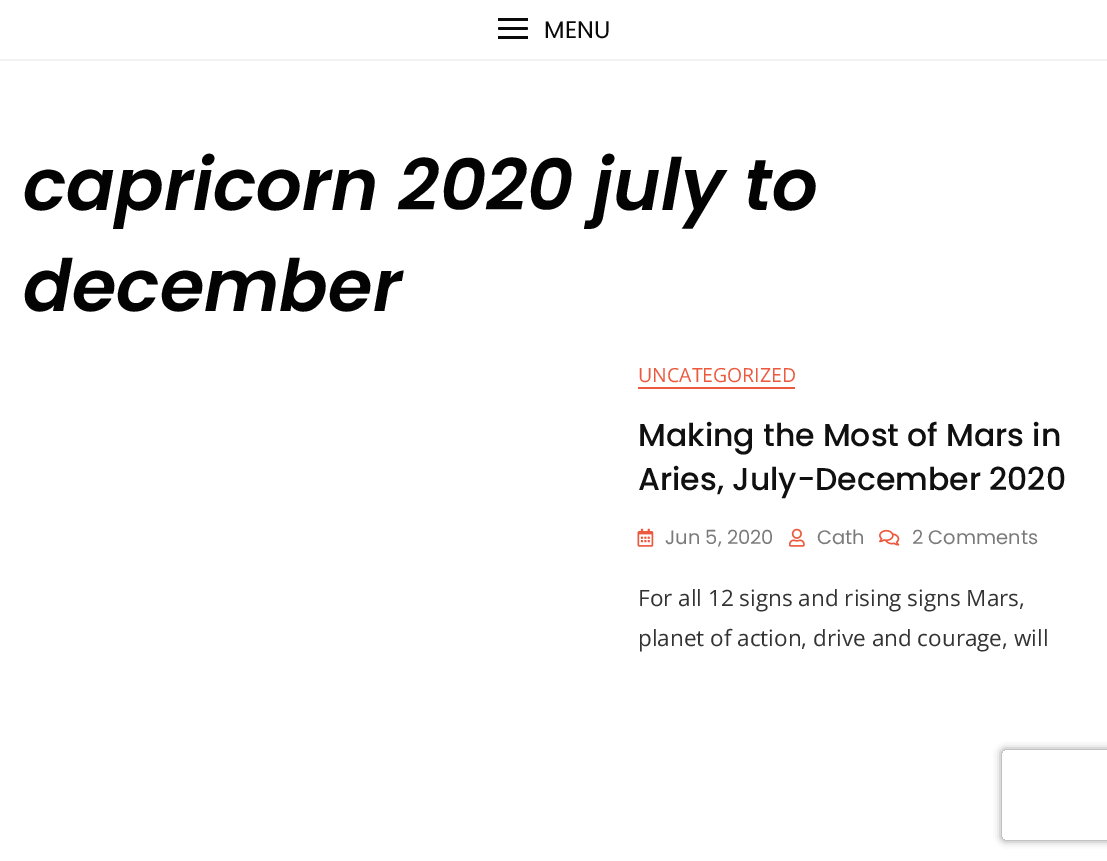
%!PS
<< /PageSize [1107 861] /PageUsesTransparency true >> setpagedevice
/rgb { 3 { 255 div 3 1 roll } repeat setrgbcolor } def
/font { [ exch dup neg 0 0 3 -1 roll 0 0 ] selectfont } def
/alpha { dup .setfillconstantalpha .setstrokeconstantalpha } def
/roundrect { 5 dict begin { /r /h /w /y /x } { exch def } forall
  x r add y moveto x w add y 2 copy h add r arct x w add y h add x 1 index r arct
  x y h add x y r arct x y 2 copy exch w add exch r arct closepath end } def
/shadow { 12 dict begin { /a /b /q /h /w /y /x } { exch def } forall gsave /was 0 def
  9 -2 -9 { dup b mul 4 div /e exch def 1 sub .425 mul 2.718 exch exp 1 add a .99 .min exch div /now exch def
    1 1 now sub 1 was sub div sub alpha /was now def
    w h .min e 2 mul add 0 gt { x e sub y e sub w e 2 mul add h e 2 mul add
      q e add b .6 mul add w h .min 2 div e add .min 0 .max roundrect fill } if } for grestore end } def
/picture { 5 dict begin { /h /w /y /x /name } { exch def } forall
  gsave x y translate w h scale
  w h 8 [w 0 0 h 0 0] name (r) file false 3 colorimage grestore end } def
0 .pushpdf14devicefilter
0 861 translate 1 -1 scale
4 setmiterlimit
255 255 255 rgb
0 0 1107 861 rectfill
10 10 10 rgb
498 27 30 3 1.5 roundrect fill
[
  [498 18 30 3 10 10 10]
  [498 36 30 3 10 10 10]
  [0 59 1107 2 242 242 242]
  [638 387 157 2 235 90 62]
] { aload pop rgb rectfill } forall
(img/1.rgb) 637 528 17 19 picture
(img/2.rgb) 789 528 16 19 picture
(img/3.rgb) 879 529 21 17 picture
gsave
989 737 moveto 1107 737 lineto 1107 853 lineto 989 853 lineto closepath 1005 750 moveto 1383 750 lineto 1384.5 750 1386 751.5 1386 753 curveto 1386 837 lineto 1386 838.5 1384.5 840 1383 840 curveto 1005 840 lineto 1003.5 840 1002 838.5 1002 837 curveto 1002 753 lineto 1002 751.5 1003.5 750 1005 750 curveto closepath eoclip newpath
128 128 128 rgb
1002 750 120 90 3 4 1 shadow
grestore
/Poppins-Regular 24 font
10 10 10 rgb
544 38 moveto (MENU) show
/Poppins-SemiBoldItalic 72 font
3 3 3 rgb
23 210 moveto (capricorn 2020 july to) show
23 311 moveto (december) show
/OpenSans-Regular 19.5 font
235 90 62 rgb
638 382 moveto (UNCATEGORIZED) show
/Poppins-Medium 31.5 font
16 16 16 rgb
638 446 moveto (Making the Most of Mars in) show
638 490 moveto (Aries, July-December 2020) show
/Poppins-Regular 19.5 font
122 122 122 rgb
[
  [(Jun 5, 2020) 665 544]
  [(Cath) 817 544]
  [(2 Comments) 912 544]
] { aload pop moveto show } forall
/OpenSans-Regular 22.5 font
51 51 51 rgb
638 606 moveto (For all 12 signs and rising signs Mars,) show
638 646 moveto (planet of action, drive and courage, will) show
.poppdf14devicefilter showpage
